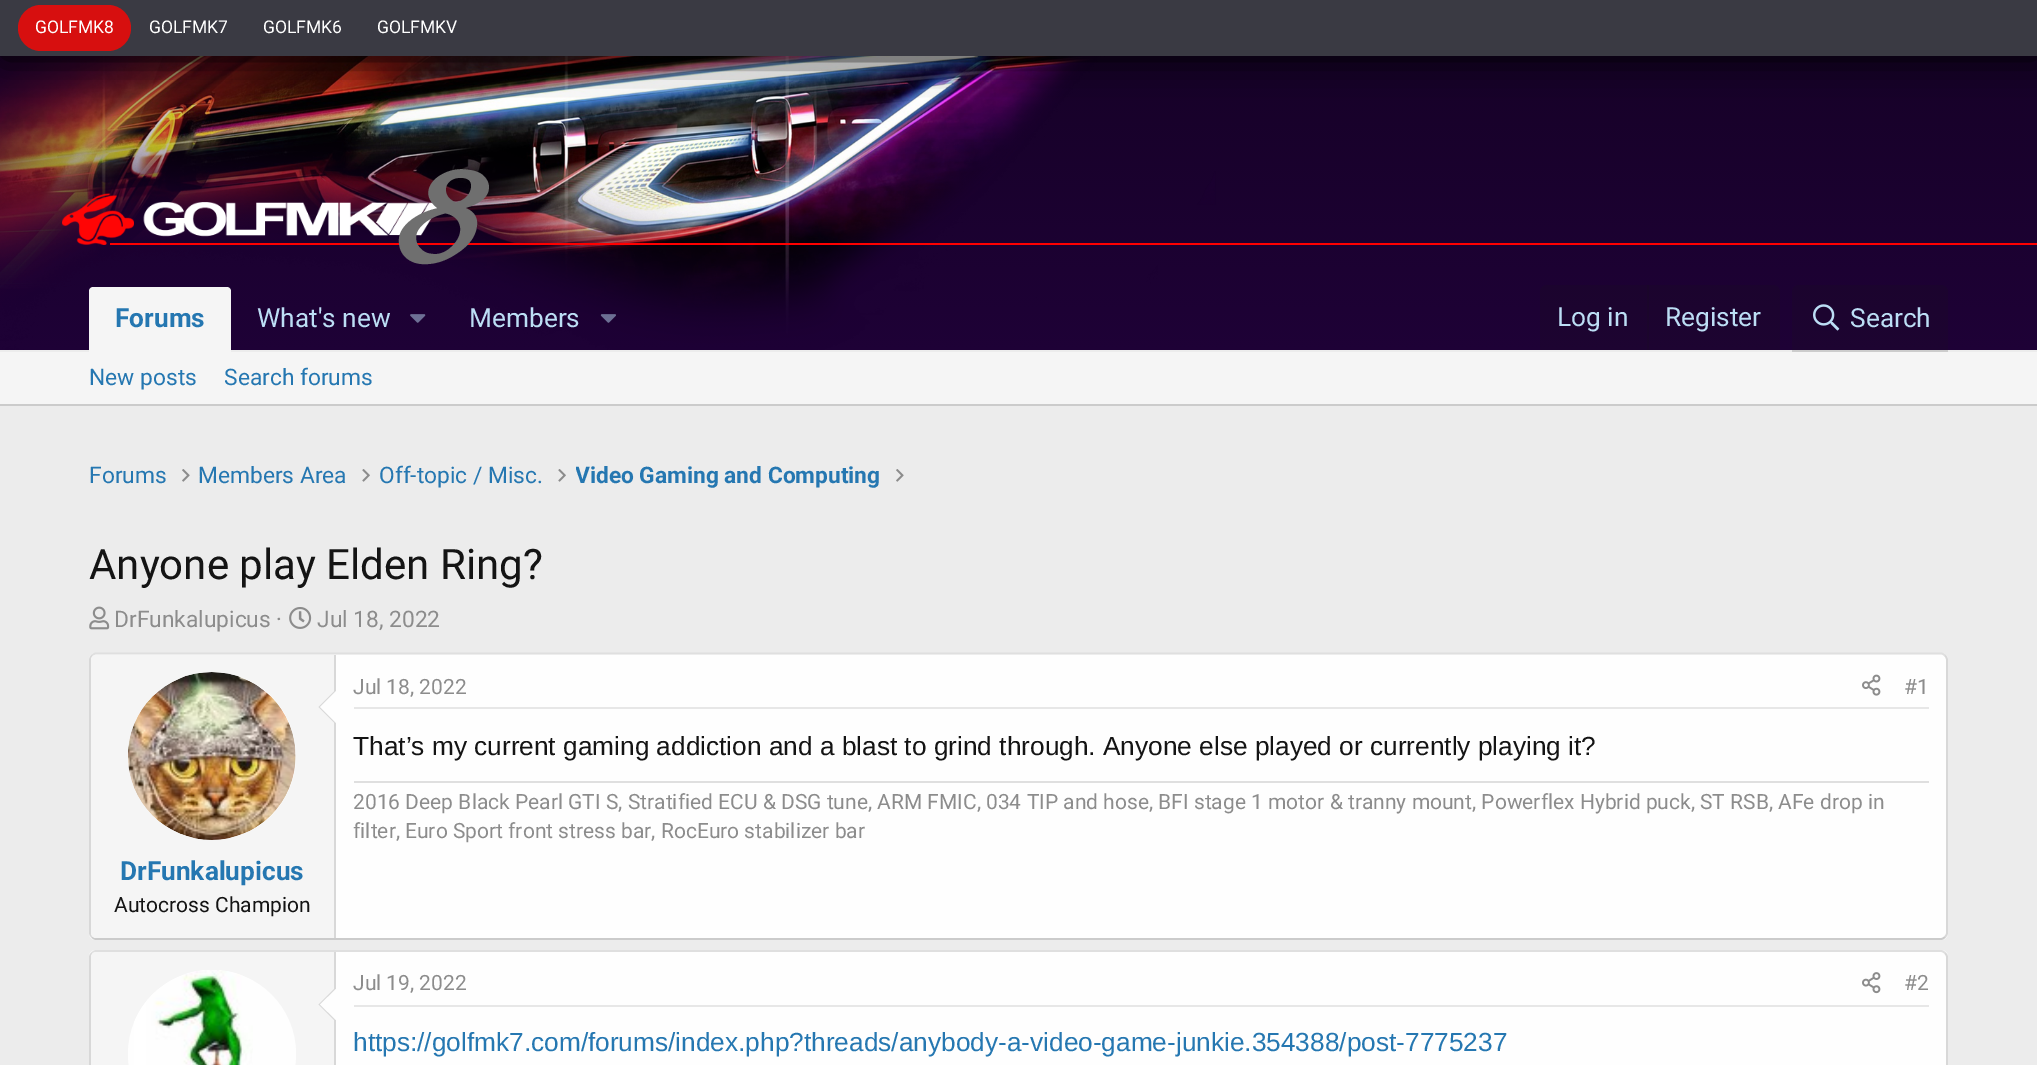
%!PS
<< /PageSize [2037 1065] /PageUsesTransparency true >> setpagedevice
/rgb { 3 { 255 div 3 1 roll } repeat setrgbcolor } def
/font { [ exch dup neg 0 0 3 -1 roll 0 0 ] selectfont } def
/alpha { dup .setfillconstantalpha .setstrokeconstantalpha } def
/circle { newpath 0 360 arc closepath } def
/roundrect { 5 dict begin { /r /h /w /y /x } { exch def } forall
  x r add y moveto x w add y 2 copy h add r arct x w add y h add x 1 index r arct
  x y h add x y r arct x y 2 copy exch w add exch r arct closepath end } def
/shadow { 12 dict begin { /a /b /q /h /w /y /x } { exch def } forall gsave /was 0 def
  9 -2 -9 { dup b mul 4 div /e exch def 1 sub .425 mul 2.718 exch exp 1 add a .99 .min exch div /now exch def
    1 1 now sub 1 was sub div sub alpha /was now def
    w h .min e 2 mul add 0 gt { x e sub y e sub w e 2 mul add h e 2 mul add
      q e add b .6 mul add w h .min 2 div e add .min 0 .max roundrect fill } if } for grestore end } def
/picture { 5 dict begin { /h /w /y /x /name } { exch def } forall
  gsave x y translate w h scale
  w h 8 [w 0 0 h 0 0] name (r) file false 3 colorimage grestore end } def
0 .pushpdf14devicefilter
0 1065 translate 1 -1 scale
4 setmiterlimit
236 236 236 rgb
0 0 2037 1065 rectfill
(img/1.rgb) 0 56 2037 294 picture
0 0 0 rgb
2 2 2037 56 0 17.5 1 shadow
58 58 67 rgb
0 0 2037 56 rectfill
215 15 15 rgb
18 5 113 46 23 roundrect fill
(img/2.rgb) 62 193 72 52 picture
(img/3.rgb) 143 202 298 35 picture
255 0 0 rgb
110 243 1927 2 rectfill
245 245 245 rgb
93 287 moveto 227 287 lineto 229 287 231 289 231 291 curveto 231 352 lineto 89 352 lineto 89 291 lineto 89 289 91 287 93 287 curveto closepath fill
(img/4.rgb) 410 314 16 9 picture
(img/5.rgb) 600 314 16 9 picture
0.15 alpha
20 20 20 rgb
1547 285 moveto 1773 285 lineto 1777 285 1780 288 1780 292 curveto 1780 350 lineto 1540 350 lineto 1540 292 lineto 1540 288 1543 285 1547 285 curveto closepath fill
1647 285 2 65 rectfill
1799 285 moveto 1941 285 lineto 1945 285 1948 288 1948 292 curveto 1948 352 lineto 1792 352 lineto 1792 292 lineto 1792 288 1795 285 1799 285 curveto closepath fill
1 alpha
(img/6.rgb) 1813 304 27 27 picture
245 245 245 rgb
0 352 2037 52 rectfill
203 203 203 rgb
0 404 2037 2 rectfill
(img/7.rgb) 182 469 8 13 picture
(img/8.rgb) 362 469 8 13 picture
(img/8.rgb) 558 469 8 13 picture
(img/7.rgb) 896 469 8 13 picture
(img/9.rgb) 89 606 21 24 picture
(img/10.rgb) 289 607 23 22 picture
254 254 254 rgb
89 653 1859 287 7 roundrect fill
223 223 223 rgb
1.8 setlinewidth
92 655.5 moveto 93 654.5 94.5 653.5 96 653.5 curveto 1941 653.5 lineto 1942.5 653.5 1944 654.5 1945 655.5 curveto stroke
216 216 216 rgb
1945 655.5 moveto 1946 656.5 1947 658 1947 660 curveto 1947 933 lineto 1947 934.5 1946 936 1945 937 curveto stroke
203 203 203 rgb
1945 937 moveto 1944 938 1942.5 939 1941 939 curveto 96 939 lineto 94.5 939 93 938 92 937 curveto stroke
216 216 216 rgb
92 937 moveto 91 936 90 934.5 90 933 curveto 90 660 lineto 90 658 91 656.5 92 655.5 curveto stroke
231 231 231 rgb
354 707 1575 2 rectfill
(img/11.rgb) 1862 674 19 22 picture
223 223 223 rgb
354 781 1575 2 rectfill
245 245 245 rgb
96 655 moveto 336 655 lineto 336 938 lineto 96 938 lineto 93 938 91 936 91 933 curveto 91 660 lineto 91 657 93 655 96 655 curveto closepath fill
216 216 216 rgb
334 655 2 283 rectfill
254 254 254 rgb
212 756 84 circle fill
(img/12.rgb) 128 672 168 168 picture
216 216 216 rgb
336 689.5 moveto 336 724.5 lineto 318.5 707 lineto closepath fill
254 254 254 rgb
336 691 moveto 336 723 lineto 320 707 lineto closepath fill
89 950 1859 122 7 roundrect fill
223 223 223 rgb
92 953 moveto 93 952 94.5 951 96 951 curveto 1941 951 lineto 1942.5 951 1944 952 1945 953 curveto stroke
216 216 216 rgb
1945 953 moveto 1946 954 1947 955.5 1947 957 curveto 1947 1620.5 lineto 1947 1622 1946 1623.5 1945 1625 curveto stroke
92 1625 moveto 91 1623.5 90 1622 90 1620.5 curveto 90 957 lineto 90 955.5 91 954 92 953 curveto stroke
245 245 245 rgb
96 952 moveto 336 952 lineto 336 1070 lineto 96 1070 lineto 93 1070 91 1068 91 1065 curveto 91 957 lineto 91 954 93 952 96 952 curveto closepath fill
216 216 216 rgb
334 952 2 113 rectfill
254 254 254 rgb
212 1054 84 circle fill
(img/13.rgb) 134 970 119 95 picture
216 216 216 rgb
336 987 moveto 336 1022 lineto 318.5 1004.5 lineto closepath fill
254 254 254 rgb
336 989 moveto 336 1020 lineto 320 1004.5 lineto closepath fill
231 231 231 rgb
354 1005 1575 2 rectfill
(img/14.rgb) 1862 972 19 22 picture
/Roboto-Regular 17.5 font
255 255 255 rgb
[
  [(GOLFMK8) 35 33]
  [(GOLFMK7) 149 33]
  [(GOLFMK6) 263 33]
  [(GOLFMKV) 377 33]
] { aload pop moveto show } forall
/MarckScript-Regular 198 font
111 111 111 rgb
400 266 moveto (8) show
/Roboto-Bold 26.25 font
37 119 177 rgb
115 327 moveto (Forums) show
/Roboto-Regular 26.25 font
188 222 245 rgb
[
  [(What's new) 257 327]
  [(Members) 469 327]
  [(Log in) 1557 326]
  [(Register) 1665 326]
  [(Search) 1850 327]
] { aload pop moveto show } forall
/Roboto-Regular 22.75 font
37 119 177 rgb
[
  [(New posts) 89 385]
  [(Search forums) 224 385]
  [(Forums) 89 483]
  [(Members Area) 198 483]
  [(Off-topic / Misc.) 379 483]
] { aload pop moveto show } forall
gsave
576 459 304 35 rectclip
/Roboto-Bold 22.75 font
575 483 moveto (Video Gaming and Computing) show
grestore
/Roboto-Regular 42 font
20 20 20 rgb
89 579 moveto (Anyone play Elden Ring?) show
/Roboto-Regular 22.75 font
140 140 140 rgb
114 627 moveto (DrFunkalupicus ·) show
317 627 moveto (Jul 18, 2022) show
/Roboto-Regular 21 font
353 694 moveto (Jul 18, 2022) show
1904 694 moveto (#1) show
/LiberationSans-Regular 26.25 font
20 20 20 rgb
353 755 moveto (That’s my current gaming addiction and a blast to grind through. Anyone else played or currently playing it?) show
/Roboto-Regular 21 font
140 140 140 rgb
353 809 moveto (2016 Deep Black Pearl GTI S, Stratified ECU & DSG tune, ARM FMIC, 034 TIP and hose, BFI stage 1 motor & tranny mount, Powerflex Hybrid puck, ST RSB, AFe drop in) show
353 838 moveto (filter, Euro Sport front stress bar, RocEuro stabilizer bar) show
/Roboto-Bold 26.25 font
37 119 177 rgb
120 880 moveto (DrFunkalupicus) show
/Roboto-Regular 21 font
20 20 20 rgb
114 912 moveto (Autocross Champion) show
140 140 140 rgb
353 990 moveto (Jul 19, 2022) show
1904 990 moveto (#2) show
/LiberationSans-Regular 26.25 font
37 119 177 rgb
353 1051 moveto (https://golfmk7.com/forums/index.php?threads/anybody-a-video-game-junkie.354388/post-7775237) show
.poppdf14devicefilter showpage
